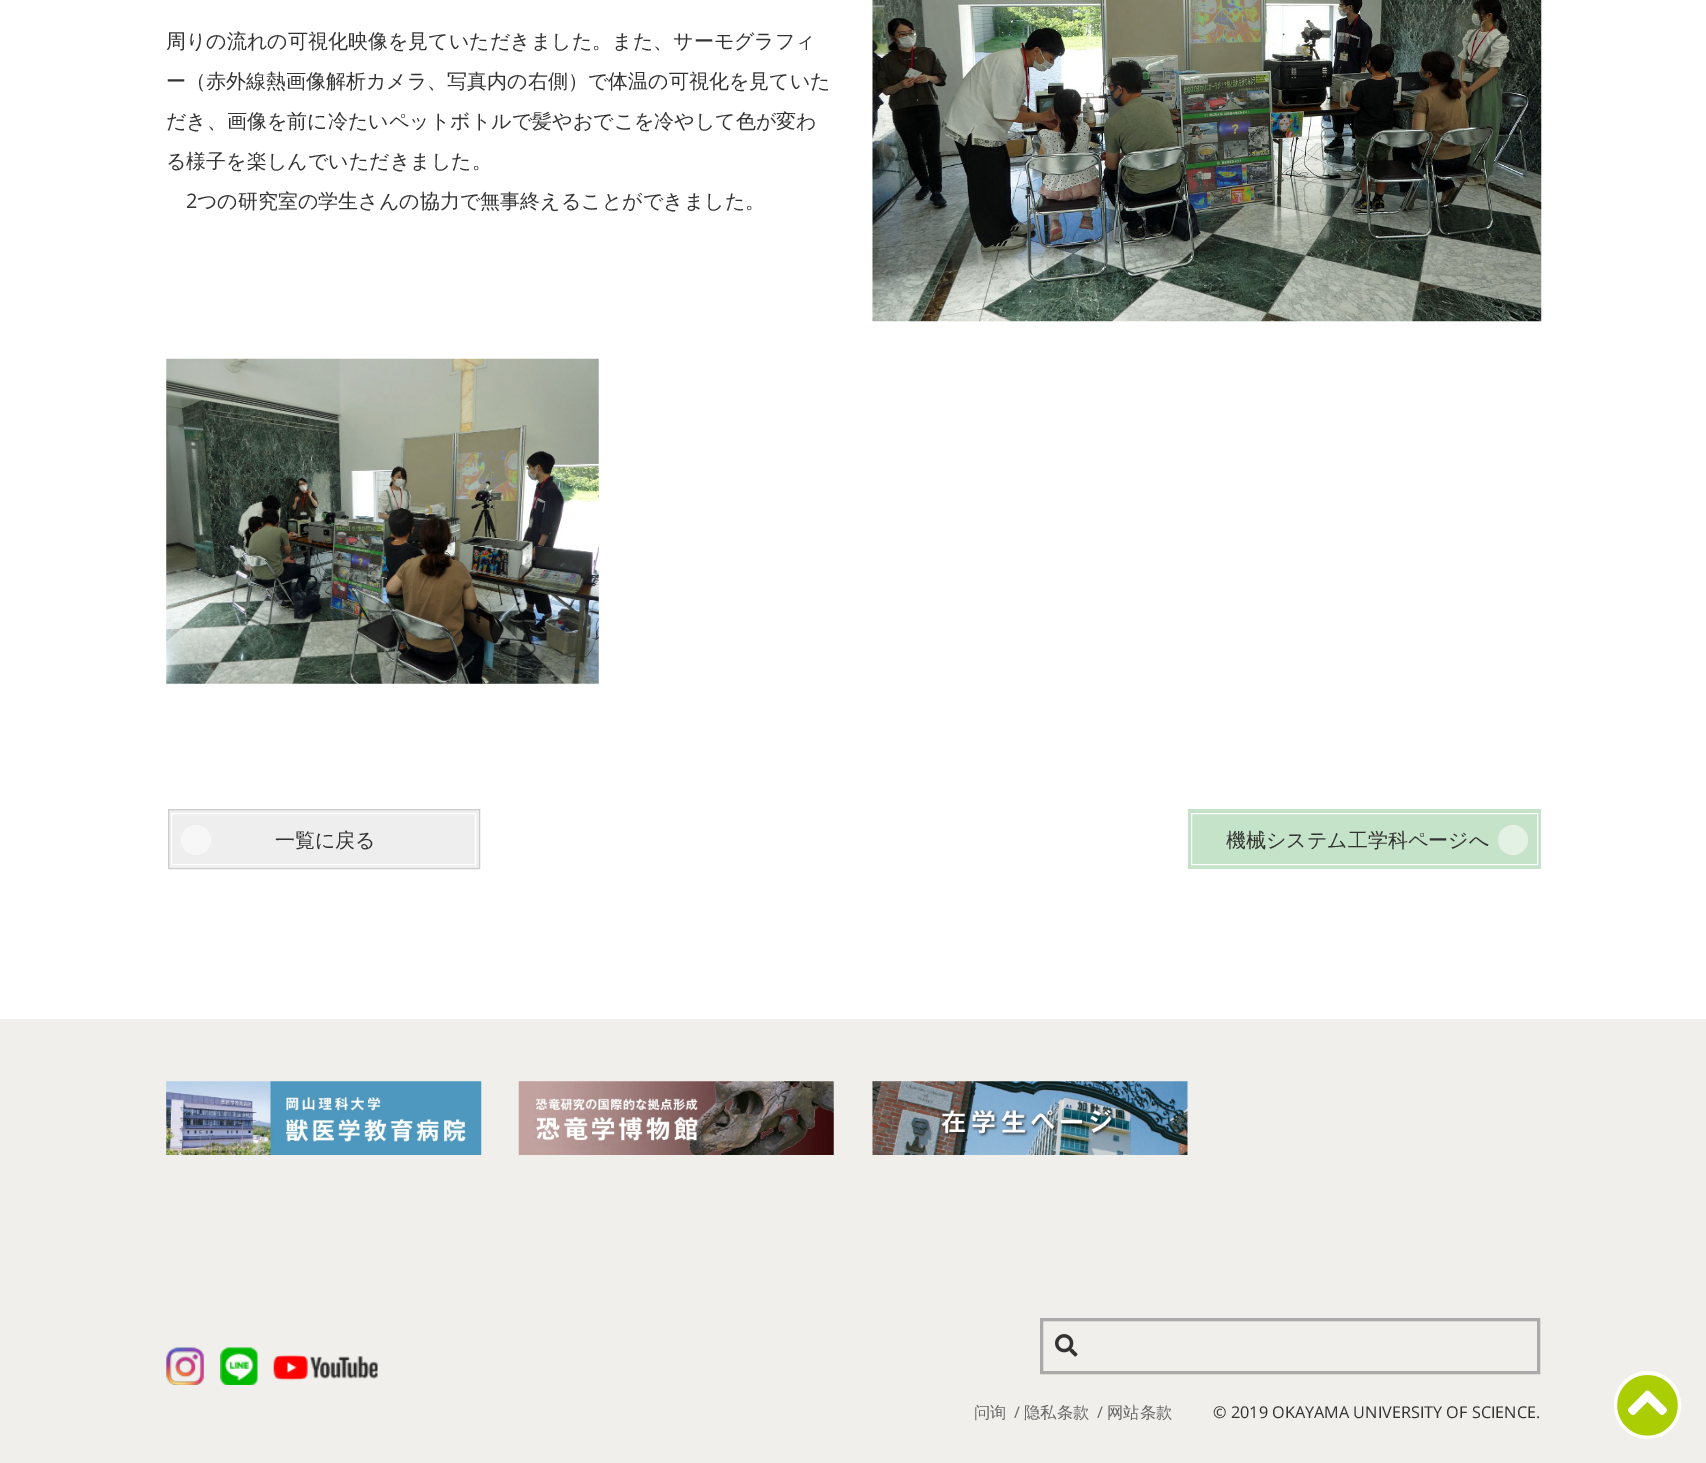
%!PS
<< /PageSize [1706 1463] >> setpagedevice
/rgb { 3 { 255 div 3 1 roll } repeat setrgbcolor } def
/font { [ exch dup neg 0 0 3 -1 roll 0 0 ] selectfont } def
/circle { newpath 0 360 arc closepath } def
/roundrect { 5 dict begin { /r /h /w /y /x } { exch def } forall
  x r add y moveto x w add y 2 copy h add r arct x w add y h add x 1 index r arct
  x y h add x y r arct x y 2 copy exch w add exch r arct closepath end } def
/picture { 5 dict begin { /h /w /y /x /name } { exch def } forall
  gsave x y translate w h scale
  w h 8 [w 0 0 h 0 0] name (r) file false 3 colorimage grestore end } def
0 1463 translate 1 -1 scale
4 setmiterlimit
255 255 255 rgb
0 0 1706 1463 rectfill
(img/1.rgb) 872 0 670 322 picture
(img/2.rgb) 166 358 433 326 picture
238 238 238 rgb
168.5 809.5 moveto 479.5 809.5 lineto 479.5 868.5 lineto 168.5 868.5 lineto closepath gsave fill grestore
204 204 204 rgb
stroke
255 255 255 rgb
171.5 813.5 304 51 rectstroke
247 247 247 rgb
196 840 15 circle fill
197 227 200 rgb
1188 809 353 60 rectfill
255 255 255 rgb
1191.5 813.5 346 51 rectstroke
226 241 228 rgb
1513 840 15 circle fill
241 239 236 rgb
0 1019 1706 444 rectfill
(img/3.rgb) 166 1081 316 74 picture
(img/4.rgb) 518 1081 316 74 picture
(img/5.rgb) 872 1081 316 74 picture
(img/6.rgb) 166 1347 38 38 picture
(img/7.rgb) 220 1347 38 38 picture
(img/8.rgb) 273 1355 105 26 picture
170 170 170 rgb
3 setlinewidth
1041.5 1319.5 497 53 rectstroke
(img/9.rgb) 1055 1334 23 23 picture
255 255 255 rgb
1615.5 1372.5 64 65 32 roundrect gsave fill grestore
stroke
(img/10.rgb) 1617 1375 61 61 picture
/WenQuanYiZenHei-Medium 20 font
51 51 51 rgb
[
  [(周りの流れの可視化映像を見ていただきました。また、サーモグラフィ) 166 48]
  [(ー（赤外線熱画像解析カメラ、写真内の右側）で体温の可視化を見ていた) 166 88]
  [(だき、画像を前に冷たいペットボトルで髪やおでこを冷やして色が変わ) 166 128]
  [(る様子を楽しんでいただきました。) 166 168]
] { aload pop moveto show } forall
/OpenSans-Regular 20 font
186 208 moveto (2) show
/WenQuanYiZenHei-Medium 20 font
[
  [(つの研究室の学生さんの協力で無事終えることができました。) 197 208]
  [(一覧に戻る) 275 847]
  [(機械システム工学科ページへ) 1226 847]
] { aload pop moveto show } forall
/WenQuanYiZenHei-Medium 16.25 font
102 102 102 rgb
974 1418 moveto (问询) show
/OpenSans-Regular 16.25 font
1014 1418 moveto (/) show
/WenQuanYiZenHei-Medium 16.25 font
1024 1418 moveto (隐私条款) show
/OpenSans-Regular 16.25 font
1097 1418 moveto (/) show
/WenQuanYiZenHei-Medium 16.25 font
1107 1418 moveto (网站条款) show
/OpenSans-Regular 16.25 font
51 51 51 rgb
1213 1418 moveto (© 2019 OKAYAMA UNIVERSITY OF SCIENCE.) show
showpage
